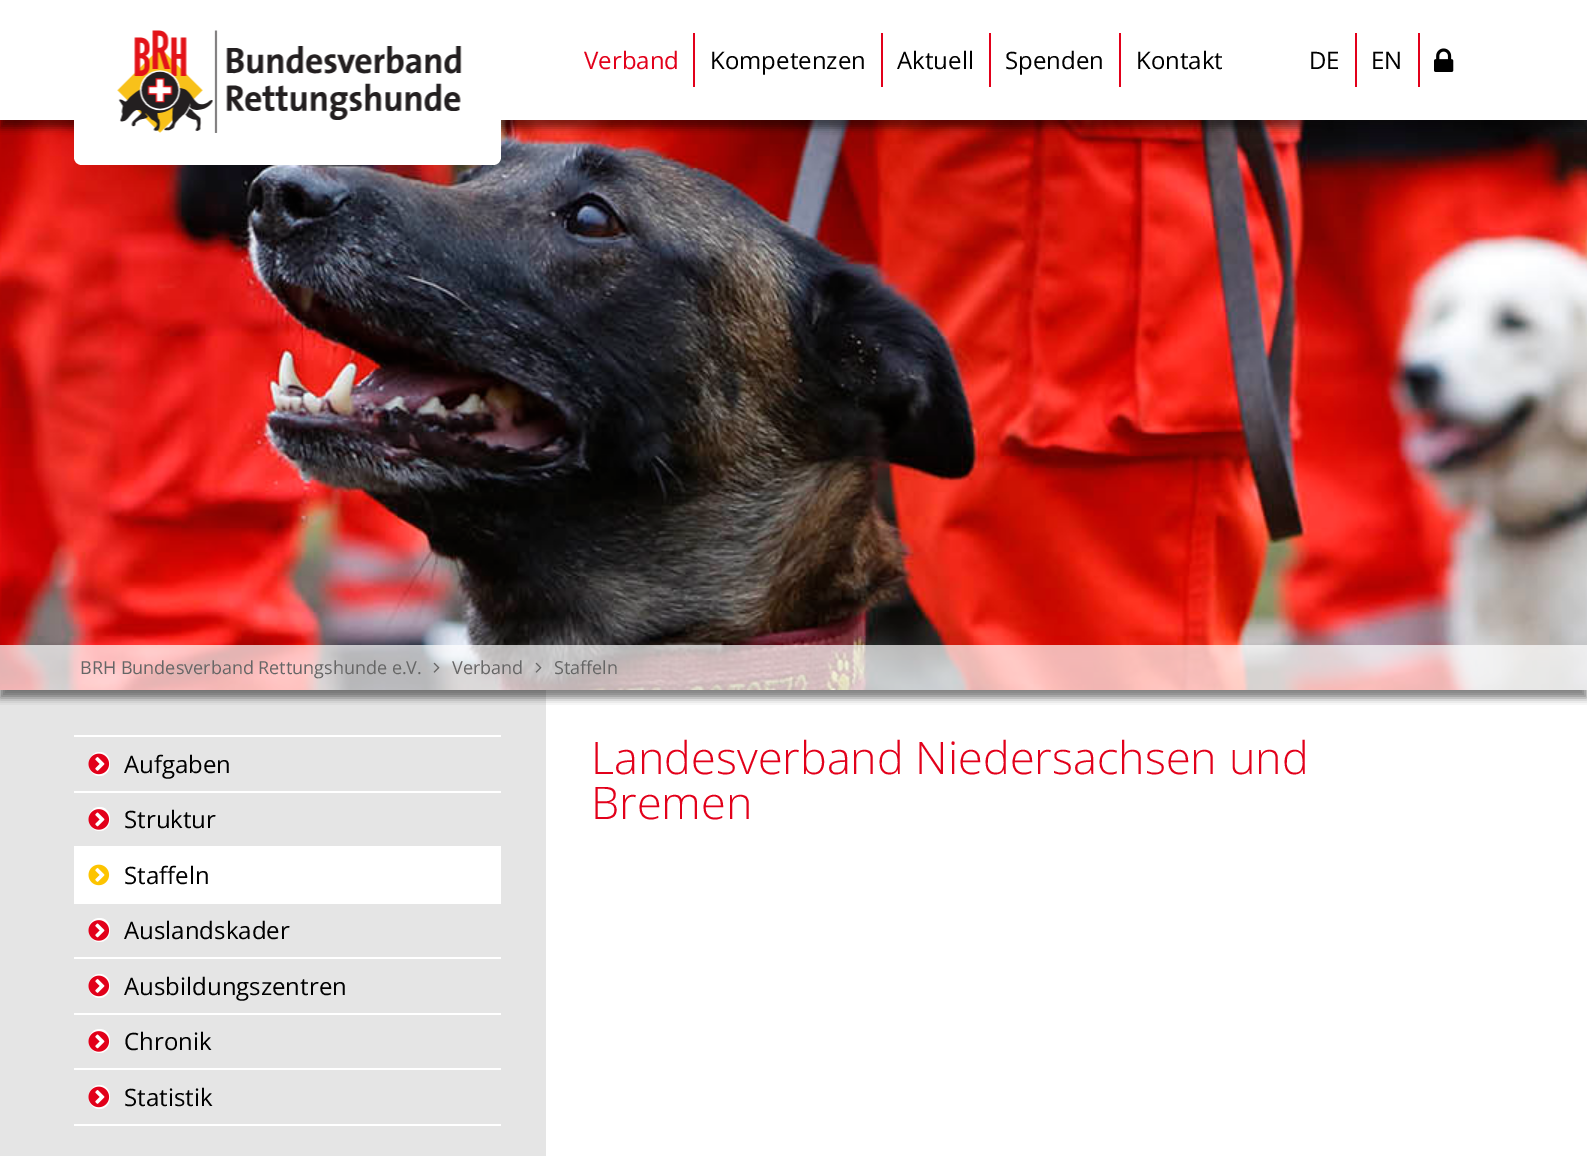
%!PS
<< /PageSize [1587 1156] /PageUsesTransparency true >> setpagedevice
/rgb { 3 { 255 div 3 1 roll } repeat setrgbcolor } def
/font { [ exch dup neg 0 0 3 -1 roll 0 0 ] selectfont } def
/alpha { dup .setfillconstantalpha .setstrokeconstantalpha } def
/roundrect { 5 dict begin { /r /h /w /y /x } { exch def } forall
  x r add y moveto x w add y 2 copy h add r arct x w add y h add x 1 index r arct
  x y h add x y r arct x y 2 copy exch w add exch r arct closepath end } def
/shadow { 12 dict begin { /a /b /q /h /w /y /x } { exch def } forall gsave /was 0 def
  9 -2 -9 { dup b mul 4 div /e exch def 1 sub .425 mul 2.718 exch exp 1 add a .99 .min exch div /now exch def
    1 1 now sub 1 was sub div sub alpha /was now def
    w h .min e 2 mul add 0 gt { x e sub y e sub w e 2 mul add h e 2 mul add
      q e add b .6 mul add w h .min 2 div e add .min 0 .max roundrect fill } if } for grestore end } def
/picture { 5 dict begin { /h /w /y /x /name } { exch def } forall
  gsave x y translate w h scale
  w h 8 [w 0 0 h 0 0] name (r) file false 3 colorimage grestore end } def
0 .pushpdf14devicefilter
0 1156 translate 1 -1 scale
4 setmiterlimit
255 255 255 rgb
0 0 1587 1156 rectfill
229 229 229 rgb
0 690 546 466 rectfill
gsave
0 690 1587 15 rectclip
0 0 0 rgb
0 8 1587 690 0 4 0.5 shadow
grestore
(img/3.rgb) 0 120 1587 570 picture
gsave
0 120 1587 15 rectclip
0 0 0 rgb
0 8 1587 120 0 4 0.5 shadow
grestore
255 255 255 rgb
74 0 moveto 501 0 lineto 501 157 lineto 501 161.5 497.5 165 493 165 curveto 82 165 lineto 77.5 165 74 161.5 74 157 curveto closepath fill
(img/1.rgb) 117 30 345 103 picture
[
  [693 33 2 54 226 0 26]
  [881 33 2 54 226 0 26]
  [989 33 2 54 226 0 26]
  [1119 33 2 54 226 0 26]
  [1355 33 2 54 226 0 26]
  [1418 33 2 54 226 0 26]
] { aload pop rgb rectfill } forall
(img/2.rgb) 1434 48 20 24 picture
0.7 alpha
255 255 255 rgb
0 645 1587 45 rectfill
1 alpha
(img/4.rgb) 433 662 7 11 picture
(img/5.rgb) 535 662 7 11 picture
74 735 427 2 rectfill
74 791 427 2 rectfill
89 752 21 24 10.5 roundrect fill
(img/6.rgb) 88 753 22 22 picture
74 846 427 58 rectfill
89 807 21 24 10.5 roundrect fill
(img/7.rgb) 88 809 22 21 picture
(img/8.rgb) 88 864 22 22 picture
74 957 427 2 rectfill
89 918 21 24 10.5 roundrect fill
(img/7.rgb) 88 920 22 21 picture
74 1013 427 2 rectfill
89 974 21 24 10.5 roundrect fill
(img/6.rgb) 88 975 22 22 picture
74 1068 427 2 rectfill
89 1029 21 24 10.5 roundrect fill
(img/7.rgb) 88 1031 22 21 picture
74 1124 427 2 rectfill
89 1085 21 24 10.5 roundrect fill
(img/6.rgb) 88 1086 22 22 picture
/OpenSans-Regular 24 font
226 0 26 rgb
584 69 moveto (Verband) show
0 0 0 rgb
[
  [(Kompetenzen) 710 69]
  [(Aktuell) 897 69]
  [(Spenden) 1005 69]
  [(Kontakt) 1136 69]
  [(DE) 1309 69]
  [(EN) 1371 69]
] { aload pop moveto show } forall
/OpenSans-Regular 18 font
102 102 102 rgb
[
  [(BRH Bundesverband Rettungshunde e.V.) 80 674]
  [(Verband) 452 674]
  [(Staffeln) 554 674]
] { aload pop moveto show } forall
/OpenSans-Light 45 font
226 0 26 rgb
591 774 moveto (Landesverband Niedersachsen und) show
591 819 moveto (Bremen) show
/OpenSans-Regular 24 font
0 0 0 rgb
[
  [(Aufgaben) 124 773]
  [(Struktur) 124 828]
  [(Staffeln) 124 884]
  [(Auslandskader) 124 939]
  [(Ausbildungszentren) 124 995]
  [(Chronik) 124 1050]
  [(Statistik) 124 1106]
] { aload pop moveto show } forall
.poppdf14devicefilter showpage
